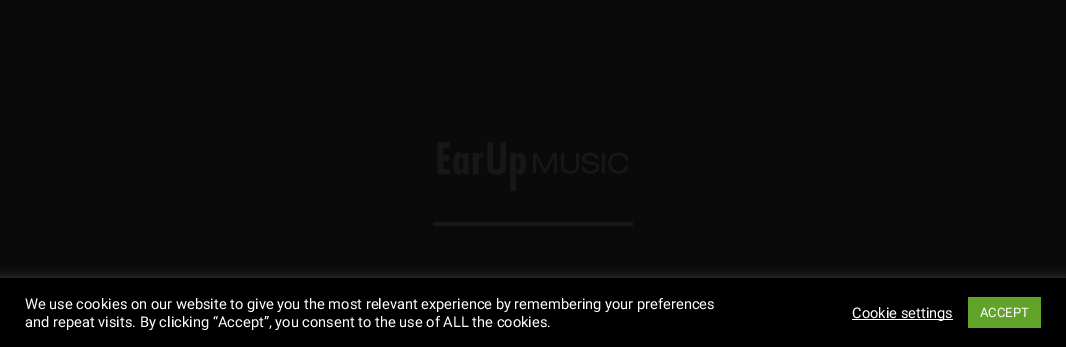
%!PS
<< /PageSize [1066 347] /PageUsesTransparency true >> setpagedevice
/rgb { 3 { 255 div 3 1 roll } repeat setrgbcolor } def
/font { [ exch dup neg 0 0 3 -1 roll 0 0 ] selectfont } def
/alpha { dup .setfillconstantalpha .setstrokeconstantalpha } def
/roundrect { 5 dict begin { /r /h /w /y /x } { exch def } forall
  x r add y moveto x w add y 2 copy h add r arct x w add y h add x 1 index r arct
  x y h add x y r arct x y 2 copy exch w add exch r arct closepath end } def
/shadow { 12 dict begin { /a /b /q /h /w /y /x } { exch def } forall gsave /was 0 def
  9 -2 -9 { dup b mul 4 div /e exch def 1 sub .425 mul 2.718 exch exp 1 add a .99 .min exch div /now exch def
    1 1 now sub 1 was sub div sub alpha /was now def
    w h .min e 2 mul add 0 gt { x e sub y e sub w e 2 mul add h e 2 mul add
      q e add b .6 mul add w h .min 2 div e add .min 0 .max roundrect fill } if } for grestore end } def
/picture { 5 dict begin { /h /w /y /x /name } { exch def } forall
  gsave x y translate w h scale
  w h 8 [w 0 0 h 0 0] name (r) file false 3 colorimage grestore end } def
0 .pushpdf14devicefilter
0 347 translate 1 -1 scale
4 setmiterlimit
10 10 10 rgb
0 0 1066 347 rectfill
(img/1.rgb) 437 142 191 49 picture
24 24 24 rgb
433 222 200 4 rectfill
172 171 171 rgb
0 277 1066 69 0 5 0.3 shadow
[
  [0 278 1066 69 0 0 0]
  [852 319 101 1 255 255 255]
  [968 297 73 31 97 162 41]
] { aload pop rgb rectfill } forall
/Roboto-Regular 14.65 font
255 255 255 rgb
[
  [(We use cookies on our website to give you the most relevant experience by remembering your preferences) 25 309]
  [(and repeat visits. By clicking “Accept”, you consent to the use of ALL the cookies.) 25 327]
  [(Cookie settings) 852 318]
] { aload pop moveto show } forall
/Roboto-Regular 13 font
980 317 moveto (ACCEPT) show
.poppdf14devicefilter showpage
